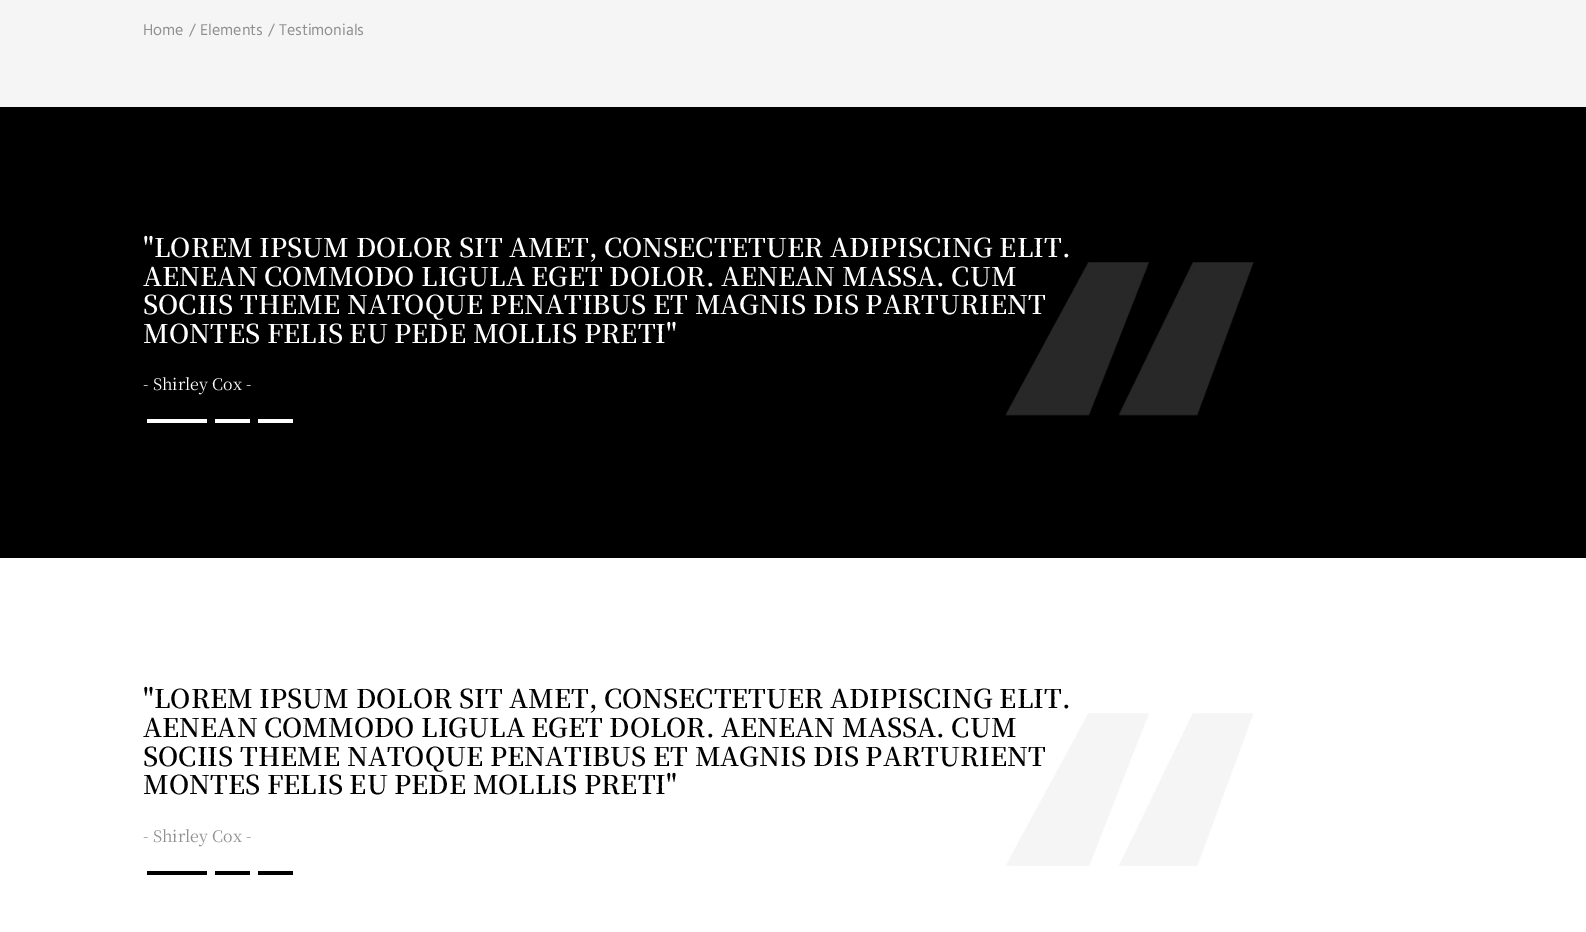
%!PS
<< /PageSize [1586 932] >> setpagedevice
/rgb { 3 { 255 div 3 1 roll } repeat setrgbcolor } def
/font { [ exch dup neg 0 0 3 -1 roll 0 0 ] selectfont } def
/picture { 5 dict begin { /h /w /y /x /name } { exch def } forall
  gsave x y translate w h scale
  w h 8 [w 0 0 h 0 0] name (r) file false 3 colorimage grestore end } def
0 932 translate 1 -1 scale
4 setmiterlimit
255 255 255 rgb
0 0 1586 932 rectfill
245 245 245 rgb
0 0 1586 107 rectfill
0 0 0 rgb
0 107 1586 451 rectfill
(img/1.rgb) 1006 262 248 154 picture
[
  [147 419 60 4 255 255 255]
  [215 419 35 4 255 255 255]
  [258 419 35 4 255 255 255]
] { aload pop rgb rectfill } forall
(img/2.rgb) 1006 713 247 153 picture
[
  [147 871 60 4 0 0 0]
  [215 871 35 4 0 0 0]
  [258 871 35 4 0 0 0]
] { aload pop rgb rectfill } forall
/Hind-Regular 16 font
144 144 144 rgb
[
  [(Home) 143 35]
  [(/) 189 35]
  [(Elements) 200 35]
  [(/) 268 35]
  [(Testimonials) 279 35]
] { aload pop moveto show } forall
/NotoSerifJP-SemiBold 26 font
255 255 255 rgb
[
  [("LOREM IPSUM DOLOR SIT AMET, CONSECTETUER ADIPISCING ELIT.) 143 257]
  [(AENEAN COMMODO LIGULA EGET DOLOR. AENEAN MASSA. CUM) 143 286]
  [(SOCIIS THEME NATOQUE PENATIBUS ET MAGNIS DIS PARTURIENT) 143 314]
  [(MONTES FELIS EU PEDE MOLLIS PRETI") 143 343]
] { aload pop moveto show } forall
/NotoSerifJP-Regular 16 font
143 390 moveto (- Shirley Cox -) show
/NotoSerifJP-SemiBold 26 font
0 0 0 rgb
[
  [("LOREM IPSUM DOLOR SIT AMET, CONSECTETUER ADIPISCING ELIT.) 143 708]
  [(AENEAN COMMODO LIGULA EGET DOLOR. AENEAN MASSA. CUM) 143 737]
  [(SOCIIS THEME NATOQUE PENATIBUS ET MAGNIS DIS PARTURIENT) 143 766]
  [(MONTES FELIS EU PEDE MOLLIS PRETI") 143 794]
] { aload pop moveto show } forall
/NotoSerifJP-Regular 16 font
144 144 144 rgb
143 842 moveto (- Shirley Cox -) show
showpage
